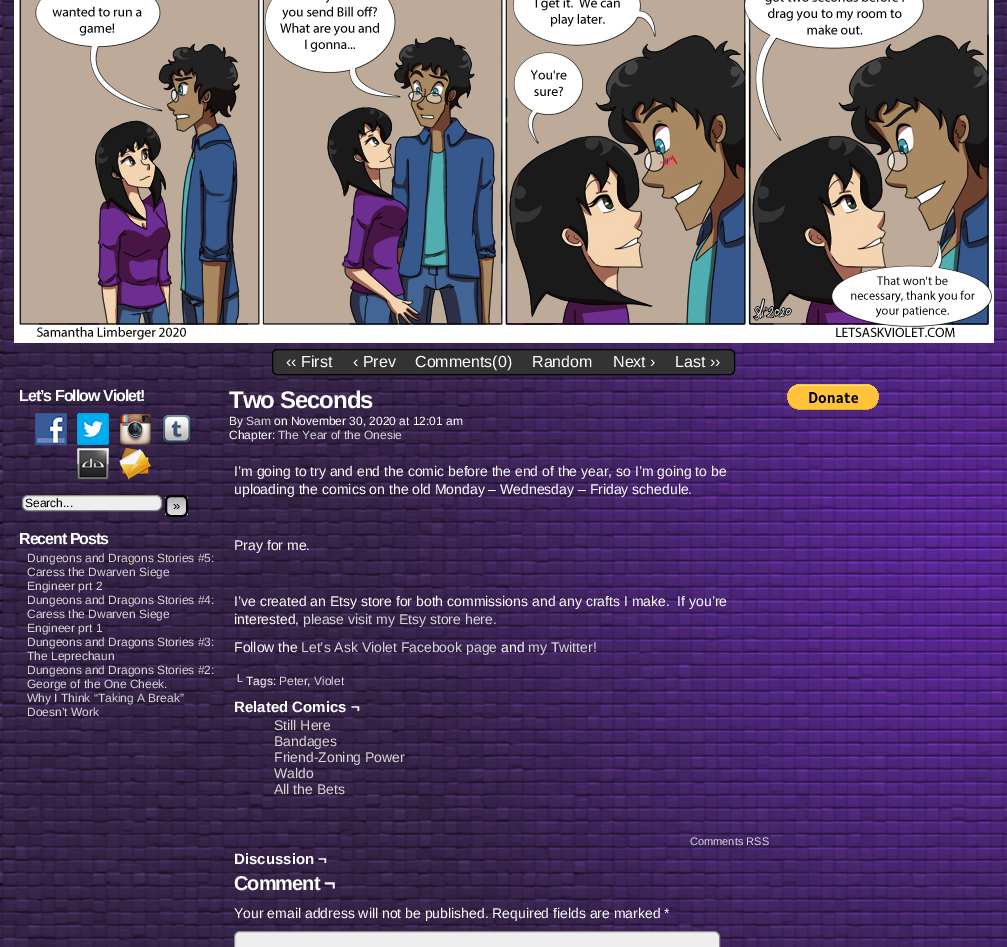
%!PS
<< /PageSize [1007 947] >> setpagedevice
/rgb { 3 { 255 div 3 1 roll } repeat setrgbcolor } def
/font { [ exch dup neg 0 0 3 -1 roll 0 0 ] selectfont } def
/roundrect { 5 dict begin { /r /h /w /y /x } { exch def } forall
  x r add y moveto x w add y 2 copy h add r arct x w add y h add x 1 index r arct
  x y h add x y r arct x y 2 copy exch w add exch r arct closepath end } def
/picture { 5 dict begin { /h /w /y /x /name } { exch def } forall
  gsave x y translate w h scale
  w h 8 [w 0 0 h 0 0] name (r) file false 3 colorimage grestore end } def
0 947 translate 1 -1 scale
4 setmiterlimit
255 255 255 rgb
0 0 1007 947 rectfill
(img/1.rgb) 0 0 1007 947 picture
(img/2.rgb) 14 0 980 343 picture
51 51 51 rgb
272.5 349.5 462 25 4.5 roundrect gsave fill grestore
0 0 0 rgb
stroke
(img/3.rgb) 35 413 32 32 picture
(img/4.rgb) 77 413 32 32 picture
(img/5.rgb) 120 414 31 31 picture
(img/6.rgb) 162 414 30 31 picture
(img/7.rgb) 77 448 32 32 picture
(img/8.rgb) 119 448 32 32 picture
238 238 238 rgb
22.5 495.5 139 15 5.5 roundrect gsave fill grestore
136 136 136 rgb
stroke
gsave
165 495 23 22 6 roundrect clip newpath
gsave 165 497 moveto 188 497 lineto 188 515 lineto 165 515 lineto closepath clip newpath
<< /ShadingType 2 /ColorSpace /DeviceRGB /Coords [177 497 177 515] /Extend [true true] /Function << /FunctionType 3 /Domain [0 1] /Functions [<< /FunctionType 2 /Domain [0 1] /C0 [0.667 0.667 0.667] /C1 [0.8 0.8 0.8] /N 1 >> << /FunctionType 2 /Domain [0 1] /C0 [0.8 0.8 0.8] /C1 [0.867 0.867 0.867] /N 1 >>] /Bounds [0.5] /Encode [0 1 0 1] >> >> shfill grestore
grestore
0 0 0 rgb
2 setlinewidth
166 496 21 20 5 roundrect stroke
238 238 238 rgb
234.5 931.5 485 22 5.5 roundrect gsave fill grestore
136 136 136 rgb
1 setlinewidth
stroke
(img/9.rgb) 787 384 92 26 picture
/LiberationSans-Regular 16 font
255 255 255 rgb
[
  [(‹‹ First) 286 367]
  [(‹ Prev) 353 367]
  [(Comments\(0\)) 415 367]
  [(Random) 532 367]
  [(Next ›) 613 367]
  [(Last ››) 675 367]
] { aload pop moveto show } forall
/LiberationSans-Bold 16 font
19 401 moveto -1 0 (Let’s Follow Violet!) ashow
/LiberationSans-Regular 12 font
0 0 0 rgb
25 507 moveto (Search...) show
/LiberationSans-Regular 13 font
173 510 moveto (») show
/LiberationSans-Bold 16 font
255 255 255 rgb
19 544 moveto -1 0 (Recent Posts) ashow
/LiberationSans-Regular 12 font
214 214 214 rgb
[
  [(Dungeons and Dragons Stories #5:) 27 562]
  [(Caress the Dwarven Siege) 27 576]
  [(Engineer prt 2) 27 590]
  [(Dungeons and Dragons Stories #4:) 27 604]
  [(Caress the Dwarven Siege) 27 618]
  [(Engineer prt 1) 27 632]
  [(Dungeons and Dragons Stories #3:) 27 646]
  [(The Leprechaun) 27 660]
  [(Dungeons and Dragons Stories #2:) 27 674]
  [(George of the One Cheek.) 27 688]
  [(Why I Think “Taking A Break”) 27 702]
  [(Doesn’t Work) 27 716]
] { aload pop moveto show } forall
/LiberationSans-Bold 24 font
255 255 255 rgb
229 408 moveto -1 0 (Two Seconds) ashow
/LiberationSans-Regular 12 font
229 425 moveto (By) show
214 214 214 rgb
246 425 moveto (Sam) show
255 255 255 rgb
274 425 moveto (on November 30, 2020 at 12:01 am) show
229 439 moveto (Chapter:) show
214 214 214 rgb
278 439 moveto (The Year of the Onesie) show
/LiberationSans-Regular 14 font
255 255 255 rgb
[
  [(I’m going to try and end the comic before the end of the year, so I’m going to be) 234 476]
  [(uploading the comics on the old Monday – Wednesday – Friday schedule.) 234 494]
  [(Pray for me.) 234 550]
  [(I’ve created an Etsy store for both commissions and any crafts I make.  If you’re) 234 606]
  [(interested,) 234 624]
] { aload pop moveto show } forall
214 214 214 rgb
303 624 moveto (please visit my Etsy store here.) show
255 255 255 rgb
234 652 moveto (Follow the) show
214 214 214 rgb
301 652 moveto (Let’s Ask Violet Facebook page) show
255 255 255 rgb
501 652 moveto (and) show
214 214 214 rgb
528 652 moveto (my Twitter!) show
/LiberationSans-Regular 12 font
255 255 255 rgb
234 685 moveto (└ Tags:) show
214 214 214 rgb
279 685 moveto (Peter) show
255 255 255 rgb
307 685 moveto (,) show
214 214 214 rgb
314 685 moveto (Violet) show
/LiberationSans-Bold 15 font
255 255 255 rgb
234 712 moveto (Related Comics ¬) show
/LiberationSans-Regular 14 font
214 214 214 rgb
[
  [(Still Here) 274 730]
  [(Bandages) 274 746]
  [(Friend-Zoning Power) 274 762]
  [(Waldo) 274 778]
  [(All the Bets) 274 794]
] { aload pop moveto show } forall
/LiberationSans-Regular 11 font
690 845 moveto (Comments RSS) show
/LiberationSans-Bold 15 font
255 255 255 rgb
234 864 moveto (Discussion ¬) show
/LiberationSans-Bold 20 font
234 890 moveto -1 0 (Comment ¬) ashow
/LiberationSans-Regular 14 font
234 918 moveto (Your email address will not be published. Required fields are marked *) show
showpage
